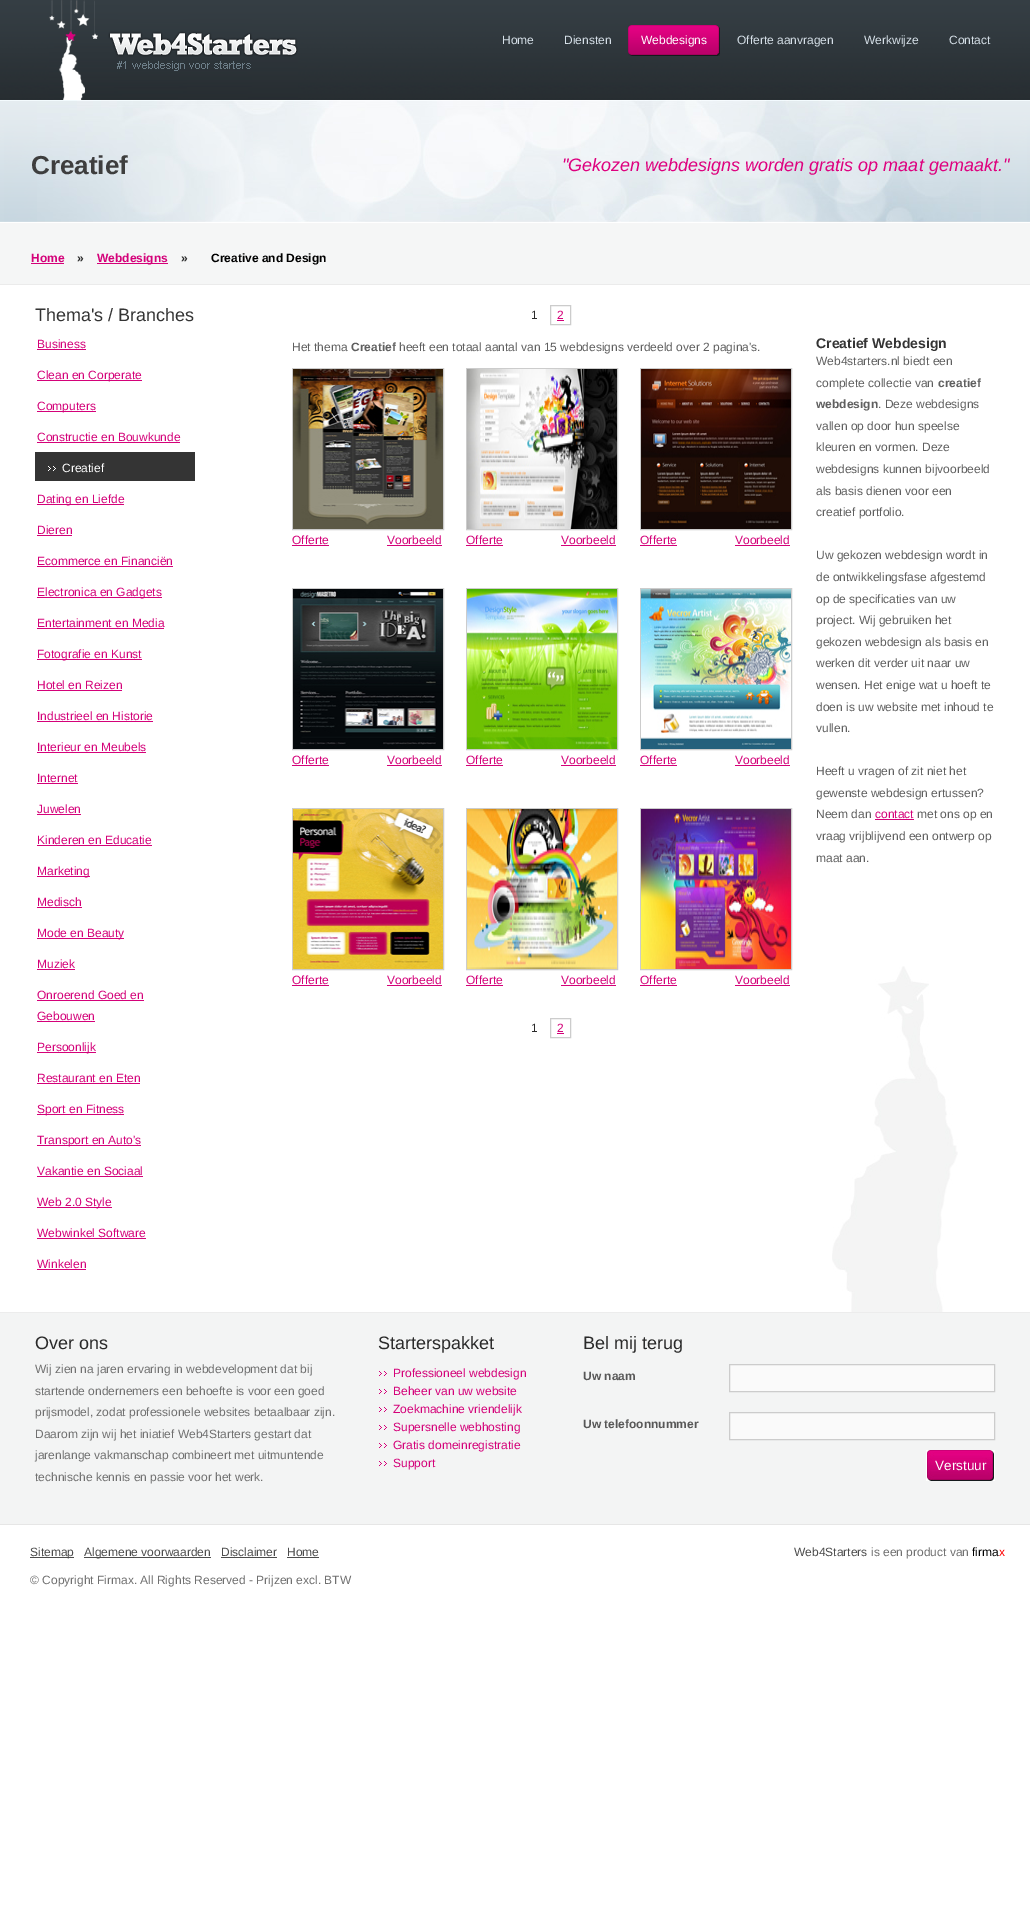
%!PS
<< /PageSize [1030 1908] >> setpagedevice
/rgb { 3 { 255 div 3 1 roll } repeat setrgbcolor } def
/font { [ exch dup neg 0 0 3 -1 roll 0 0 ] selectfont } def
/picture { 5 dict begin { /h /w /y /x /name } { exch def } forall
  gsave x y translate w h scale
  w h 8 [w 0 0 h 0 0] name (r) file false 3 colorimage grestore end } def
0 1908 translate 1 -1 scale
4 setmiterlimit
255 255 255 rgb
0 0 1030 1908 rectfill
235 235 235 rgb
0 284 1030 1 rectfill
(img/1.rgb) 0 0 1030 100 picture
(img/2.rgb) 49 0 249 100 picture
(img/3.rgb) 632 25 88 31 picture
(img/4.rgb) 628 25 4 31 picture
(img/5.rgb) 0 100 1030 184 picture
(img/6.rgb) 37 100 944 122 picture
212 1 121 rgb
31 263 33 1 rectfill
97 263 71 1 rectfill
(img/7.rgb) 832 966 126 346 picture
[
  [37 349 49 1 212 1 121]
  [37 380 105 1 212 1 121]
  [37 411 59 1 212 1 121]
  [37 442 143 1 212 1 121]
  [35 452 160 29 52 52 52]
] { aload pop rgb rectfill } forall
(img/8.rgb) 48 466 8 5 picture
[
  [37 504 87 1 212 1 121]
  [37 535 35 1 212 1 121]
  [37 566 136 1 212 1 121]
  [37 597 125 1 212 1 121]
  [37 628 127 1 212 1 121]
  [37 659 105 1 212 1 121]
  [37 690 85 1 212 1 121]
  [37 721 116 1 212 1 121]
  [37 752 109 1 212 1 121]
  [37 783 41 1 212 1 121]
  [37 814 44 1 212 1 121]
  [37 845 115 1 212 1 121]
  [37 876 53 1 212 1 121]
  [37 907 45 1 212 1 121]
  [37 938 87 1 212 1 121]
  [37 969 38 1 212 1 121]
  [37 1000 107 1 212 1 121]
  [37 1021 58 1 212 1 121]
  [37 1052 59 1 212 1 121]
  [37 1083 103 1 212 1 121]
  [37 1114 87 1 212 1 121]
  [37 1145 104 1 212 1 121]
  [37 1176 106 1 212 1 121]
  [37 1207 75 1 212 1 121]
  [37 1238 109 1 212 1 121]
  [37 1269 49 1 212 1 121]
] { aload pop rgb rectfill } forall
204 204 204 rgb
550.5 305.5 20 19 rectstroke
212 1 121 rgb
557 320 7 1 rectfill
204 204 204 rgb
292.5 368.5 151 161 rectstroke
(img/9.rgb) 293 369 150 160 picture
212 1 121 rgb
292 545 37 1 rectfill
387 545 55 1 rectfill
204 204 204 rgb
466.5 368.5 151 161 rectstroke
(img/10.rgb) 467 369 150 160 picture
212 1 121 rgb
466 545 37 1 rectfill
561 545 55 1 rectfill
204 204 204 rgb
640.5 368.5 151 161 rectstroke
(img/11.rgb) 641 369 150 160 picture
212 1 121 rgb
640 545 37 1 rectfill
735 545 55 1 rectfill
204 204 204 rgb
292.5 588.5 151 161 rectstroke
(img/12.rgb) 293 589 150 160 picture
212 1 121 rgb
292 765 37 1 rectfill
387 765 55 1 rectfill
204 204 204 rgb
466.5 588.5 151 161 rectstroke
(img/13.rgb) 467 589 150 160 picture
212 1 121 rgb
466 765 37 1 rectfill
561 765 55 1 rectfill
204 204 204 rgb
640.5 588.5 151 161 rectstroke
(img/14.rgb) 641 589 150 160 picture
212 1 121 rgb
640 765 37 1 rectfill
735 765 55 1 rectfill
204 204 204 rgb
292.5 808.5 151 161 rectstroke
(img/15.rgb) 293 809 150 160 picture
212 1 121 rgb
292 985 37 1 rectfill
387 985 55 1 rectfill
204 204 204 rgb
466.5 808.5 151 161 rectstroke
(img/16.rgb) 467 809 150 160 picture
212 1 121 rgb
466 985 37 1 rectfill
561 985 55 1 rectfill
204 204 204 rgb
640.5 808.5 151 161 rectstroke
(img/17.rgb) 641 809 150 160 picture
212 1 121 rgb
640 985 37 1 rectfill
735 985 55 1 rectfill
204 204 204 rgb
550.5 1018.5 20 19 rectstroke
[
  [557 1033 7 1 212 1 121]
  [875 819 39 1 212 1 121]
  [0 1313 1030 211 243 244 244]
  [0 1312 1030 1 236 236 236]
] { aload pop rgb rectfill } forall
(img/18.rgb) 379 1371 8 5 picture
(img/18.rgb) 379 1389 8 5 picture
(img/18.rgb) 379 1407 8 5 picture
(img/18.rgb) 379 1425 8 5 picture
(img/18.rgb) 379 1443 8 5 picture
(img/18.rgb) 379 1461 8 5 picture
250 250 250 rgb
729.5 1364.5 moveto 994.5 1364.5 lineto 994.5 1391.5 lineto 729.5 1391.5 lineto closepath gsave fill grestore
204 204 204 rgb
stroke
250 250 250 rgb
729.5 1412.5 moveto 994.5 1412.5 lineto 994.5 1439.5 lineto 729.5 1439.5 lineto closepath gsave fill grestore
204 204 204 rgb
stroke
(img/19.rgb) 926 1450 69 31 picture
[
  [0 1524 1030 1 230 230 230]
  [30 1557 44 1 76 76 76]
  [84 1557 127 1 76 76 76]
  [221 1557 56 1 76 76 76]
  [287 1557 32 1 76 76 76]
] { aload pop rgb rectfill } forall
/LiberationSans-Regular 12 font
214 224 232 rgb
502 44 moveto (Home) show
564 44 moveto (Diensten) show
255 255 255 rgb
641 44 moveto (Webdesigns) show
214 224 232 rgb
[
  [(Offerte aanvragen) 737 44]
  [(Werkwijze) 864 44]
  [(Contact) 949 44]
] { aload pop moveto show } forall
/LiberationSans-Bold 26 font
62 62 62 rgb
31 174 moveto (Creatief) show
/LiberationSans-Italic 18 font
222 1 127 rgb
562 171 moveto ("Gekozen webdesigns worden gratis op maat gemaakt.") show
/LiberationSans-Bold 12 font
212 1 121 rgb
31 262 moveto (Home) show
42 42 42 rgb
77 262 moveto (») show
212 1 121 rgb
97 262 moveto (Webdesigns) show
42 42 42 rgb
181 262 moveto (») show
0 0 0 rgb
211 262 moveto (Creative and Design) show
/LiberationSans-Regular 18 font
52 52 52 rgb
35 321 moveto (Thema's / Branches) show
/LiberationSans-Regular 12 font
212 1 121 rgb
[
  [(Business) 37 348]
  [(Clean en Corperate) 37 379]
  [(Computers) 37 410]
  [(Constructie en Bouwkunde) 37 441]
] { aload pop moveto show } forall
255 255 255 rgb
62 472 moveto (Creatief) show
212 1 121 rgb
[
  [(Dating en Liefde) 37 503]
  [(Dieren) 37 534]
  [(Ecommerce en Financiën) 37 565]
  [(Electronica en Gadgets) 37 596]
  [(Entertainment en Media) 37 627]
  [(Fotografie en Kunst) 37 658]
  [(Hotel en Reizen) 37 689]
  [(Industrieel en Historie) 37 720]
  [(Interieur en Meubels) 37 751]
  [(Internet) 37 782]
  [(Juwelen) 37 813]
  [(Kinderen en Educatie) 37 844]
  [(Marketing) 37 875]
  [(Medisch) 37 906]
  [(Mode en Beauty) 37 937]
  [(Muziek) 37 968]
  [(Onroerend Goed en) 37 999]
  [(Gebouwen) 37 1020]
  [(Persoonlijk) 37 1051]
  [(Restaurant en Eten) 37 1082]
  [(Sport en Fitness) 37 1113]
  [(Transport en Auto's) 37 1144]
  [(Vakantie en Sociaal) 37 1175]
  [(Web 2.0 Style) 37 1206]
  [(Webwinkel Software) 37 1237]
  [(Winkelen) 37 1268]
] { aload pop moveto show } forall
42 42 42 rgb
531 319 moveto (1) show
212 1 121 rgb
557 319 moveto (2) show
95 95 95 rgb
292 351 moveto (Het thema) show
/LiberationSans-Bold 12 font
351 351 moveto (Creatief) show
/LiberationSans-Regular 12 font
399 351 moveto (heeft een totaal aantal van 15 webdesigns verdeeld over 2 pagina's.) show
212 1 121 rgb
[
  [(Offerte) 292 544]
  [(Voorbeeld) 387 544]
  [(Offerte) 466 544]
  [(Voorbeeld) 561 544]
  [(Offerte) 640 544]
  [(Voorbeeld) 735 544]
  [(Offerte) 292 764]
  [(Voorbeeld) 387 764]
  [(Offerte) 466 764]
  [(Voorbeeld) 561 764]
  [(Offerte) 640 764]
  [(Voorbeeld) 735 764]
  [(Offerte) 292 984]
  [(Voorbeeld) 387 984]
  [(Offerte) 466 984]
  [(Voorbeeld) 561 984]
  [(Offerte) 640 984]
  [(Voorbeeld) 735 984]
] { aload pop moveto show } forall
42 42 42 rgb
531 1032 moveto (1) show
212 1 121 rgb
557 1032 moveto (2) show
/LiberationSans-Bold 14 font
52 52 52 rgb
816 348 moveto (Creatief Webdesign) show
/LiberationSans-Regular 12 font
95 95 95 rgb
816 365 moveto (Web4starters.nl biedt een) show
816 387 moveto (complete collectie van) show
/LiberationSans-Bold 12 font
938 387 moveto (creatief) show
816 408 moveto (webdesign) show
/LiberationSans-Regular 12 font
[
  [(. Deze webdesigns) 878 408]
  [(vallen op door hun speelse) 816 430]
  [(kleuren en vormen. Deze) 816 451]
  [(webdesigns kunnen bijvoorbeeld) 816 473]
  [(als basis dienen voor een) 816 495]
  [(creatief portfolio.) 816 516]
  [(Uw gekozen webdesign wordt in) 816 559]
  [(de ontwikkelingsfase afgestemd) 816 581]
  [(op de specificaties van uw) 816 603]
  [(project. Wij gebruiken het) 816 624]
  [(gekozen webdesign als basis en) 816 646]
  [(werken dit verder uit naar uw) 816 667]
  [(wensen. Het enige wat u hoeft te) 816 689]
  [(doen is uw website met inhoud te) 816 711]
  [(vullen.) 816 732]
  [(Heeft u vragen of zit niet het) 816 775]
  [(gewenste webdesign ertussen?) 816 797]
  [(Neem dan) 816 818]
] { aload pop moveto show } forall
212 1 121 rgb
875 818 moveto (contact) show
95 95 95 rgb
[
  [(met ons op en) 917 818]
  [(vraag vrijblijvend een ontwerp op) 816 840]
  [(maat aan.) 816 862]
] { aload pop moveto show } forall
/LiberationSans-Regular 18 font
42 42 42 rgb
35 1349 moveto (Over ons) show
/LiberationSans-Regular 12 font
112 112 112 rgb
[
  [(Wij zien na jaren ervaring in webdevelopment dat bij) 35 1373]
  [(startende ondernemers een behoefte is voor een goed) 35 1395]
  [(prijsmodel, zodat professionele websites betaalbaar zijn.) 35 1416]
  [(Daarom zijn wij het iniatief Web4Starters gestart dat) 35 1438]
  [(jarenlange vakmanschap combineert met uitmuntende) 35 1459]
  [(technische kennis en passie voor het werk.) 35 1481]
] { aload pop moveto show } forall
/LiberationSans-Regular 18 font
42 42 42 rgb
378 1349 moveto (Starterspakket) show
/LiberationSans-Regular 12 font
212 1 121 rgb
[
  [(Professioneel webdesign) 393 1377]
  [(Beheer van uw website) 393 1395]
  [(Zoekmachine vriendelijk) 393 1413]
  [(Supersnelle webhosting) 393 1431]
  [(Gratis domeinregistratie) 393 1449]
  [(Support) 393 1467]
] { aload pop moveto show } forall
/LiberationSans-Regular 18 font
42 42 42 rgb
583 1349 moveto (Bel mij terug) show
/LiberationSans-Bold 12 font
87 87 87 rgb
583 1380 moveto (Uw naam) show
583 1428 moveto (Uw telefoonnummer) show
/LiberationSans-Regular 13.5 font
255 255 255 rgb
935 1470 moveto (Verstuur) show
/LiberationSans-Regular 12 font
76 76 76 rgb
[
  [(Sitemap) 30 1556]
  [(Algemene voorwaarden) 84 1556]
  [(Disclaimer) 221 1556]
  [(Home) 287 1556]
  [(Web4Starters) 794 1556]
] { aload pop moveto show } forall
112 112 112 rgb
871 1556 moveto (is een product van) show
0 0 0 rgb
972 1556 moveto (firma) show
255 0 0 rgb
999 1556 moveto (x) show
112 112 112 rgb
30 1584 moveto (© Copyright Firmax. All Rights Reserved - Prijzen excl. BTW) show
showpage
